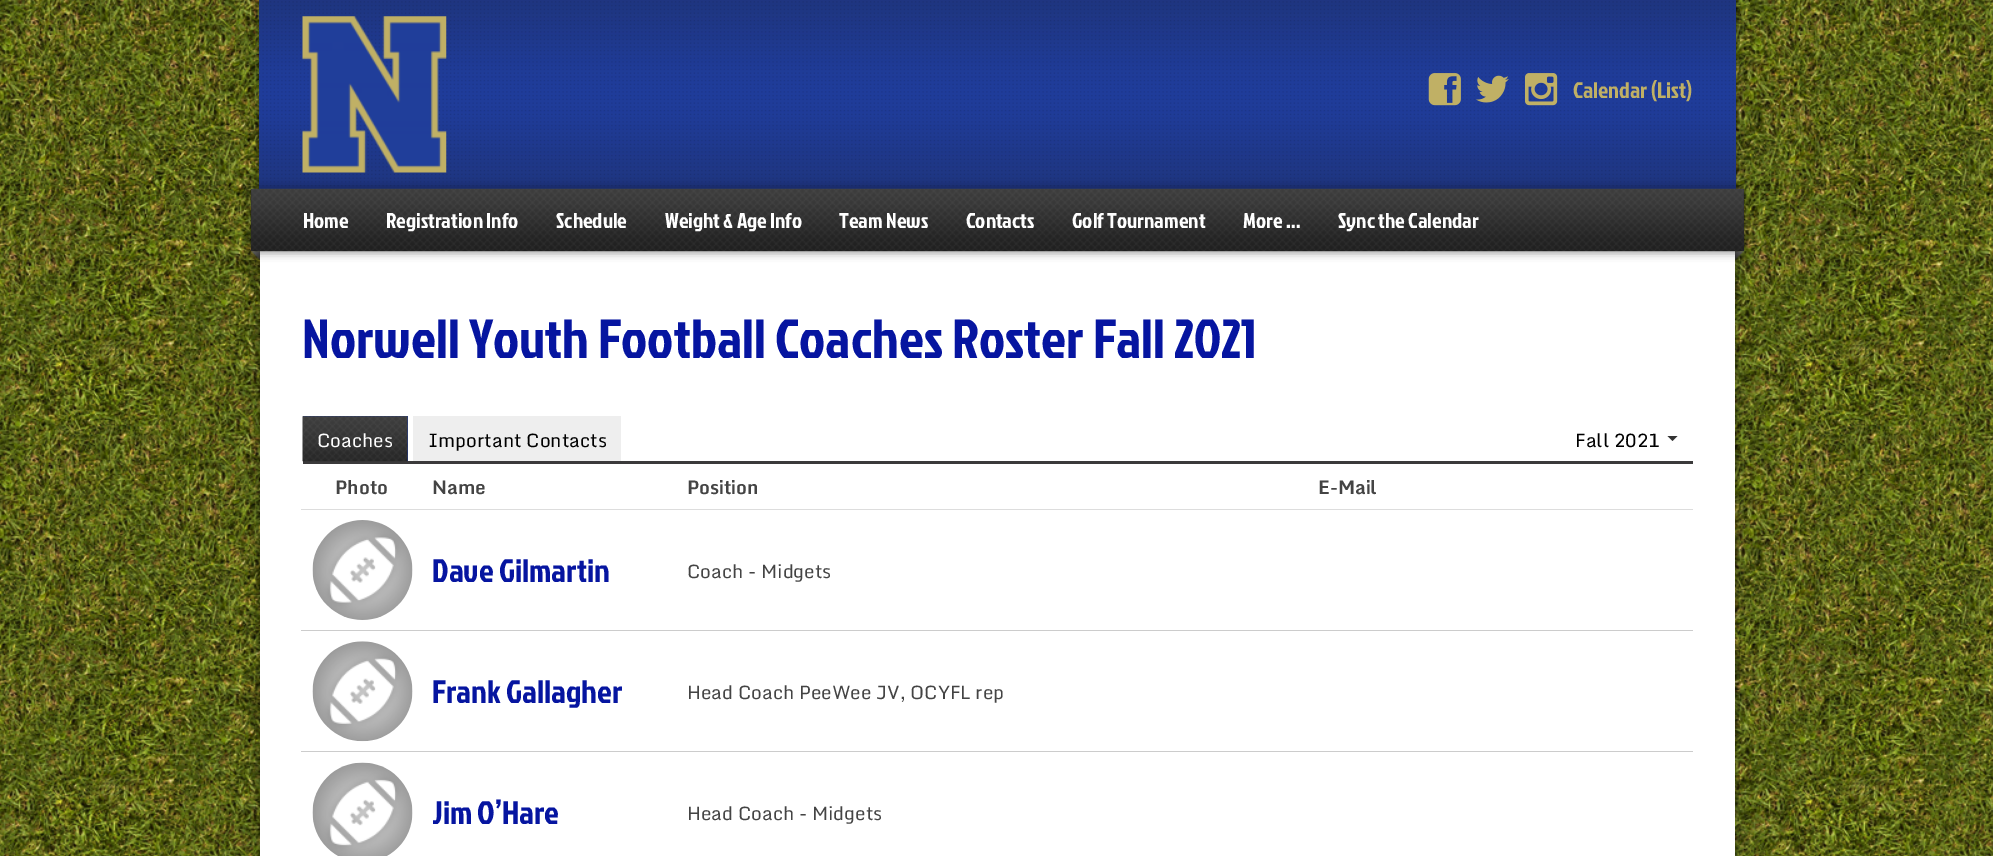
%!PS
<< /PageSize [1993 856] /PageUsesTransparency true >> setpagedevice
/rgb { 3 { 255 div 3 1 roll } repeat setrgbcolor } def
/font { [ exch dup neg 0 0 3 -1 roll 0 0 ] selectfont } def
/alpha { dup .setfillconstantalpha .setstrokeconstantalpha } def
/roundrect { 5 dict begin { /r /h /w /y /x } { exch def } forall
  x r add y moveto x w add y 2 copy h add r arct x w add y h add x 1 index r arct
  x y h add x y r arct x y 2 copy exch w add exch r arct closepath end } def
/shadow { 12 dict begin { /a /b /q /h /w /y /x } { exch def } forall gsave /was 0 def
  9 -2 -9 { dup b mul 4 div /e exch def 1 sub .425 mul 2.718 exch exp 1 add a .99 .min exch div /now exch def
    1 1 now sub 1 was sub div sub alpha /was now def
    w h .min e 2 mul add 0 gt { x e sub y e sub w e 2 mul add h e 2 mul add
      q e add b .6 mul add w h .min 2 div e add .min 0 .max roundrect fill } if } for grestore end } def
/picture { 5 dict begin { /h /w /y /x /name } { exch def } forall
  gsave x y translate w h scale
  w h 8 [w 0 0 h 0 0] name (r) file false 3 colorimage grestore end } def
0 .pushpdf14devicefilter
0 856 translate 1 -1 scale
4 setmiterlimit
255 255 255 rgb
0 0 1993 856 rectfill
(img/1.rgb) 0 0 1993 856 picture
0 0 0 rgb
260 0 1475 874 0 6 0.5 shadow
255 255 255 rgb
260 251 1475 605 rectfill
31 60 154 rgb
259 0 1477 189 rectfill
(img/2.rgb) 258 0 1479 189 picture
(img/3.rgb) 302 16 145 157 picture
(img/4.rgb) 1428 73 33 33 picture
(img/5.rgb) 1476 75 33 28 picture
(img/6.rgb) 1525 73 33 33 picture
0 0 0 rgb
251 189 1493 62 0 5 0.5 shadow
251 190 1493 63 0 2.5 0.07 shadow
(img/7.rgb) 251 188 1493 64 picture
(img/8.rgb) 251 251 9 9 picture
(img/9.rgb) 1735 251 9 9 picture
59 58 59 rgb
303 461 1390 3 rectfill
31 60 154 rgb
303 416 105 45 rectfill
(img/10.rgb) 302 416 106 46 picture
238 238 238 rgb
413 416 208 45 rectfill
51 51 51 rgb
1667.5 436 moveto 1677.5 436 lineto 1672.5 441 lineto closepath fill
221 221 221 rgb
301 509 1392 1 rectfill
204 204 204 rgb
301 630 1392 1 rectfill
(img/11.rgb) 312 520 101 100 picture
(img/12.rgb) 312 641 101 101 picture
301 751 1392 1 rectfill
(img/13.rgb) 312 762 101 94 picture
/JockeyOne-Regular 22.5 font
192 176 101 rgb
1573 98 moveto (Calendar \(List\)) show
/JockeyOne-Regular 21.25 font
255 255 255 rgb
[
  [(Home) 303 228]
  [(Registration Info) 386 228]
  [(Schedule) 556 228]
  [(Weight & Age Info) 665 228]
  [(Team News) 839 228]
  [(Contacts) 966 228]
  [(Golf Tournament) 1072 228]
  [(More …) 1243 228]
  [(Sync the Calendar) 1338 228]
] { aload pop moveto show } forall
/JockeyOne-Regular 55 font
6 21 160 rgb
302 358 moveto (Norwell Youth Football Coaches Roster Fall 2021) show
/Monda-Regular 18.75 font
255 255 255 rgb
317 447 moveto (Coaches) show
0 0 0 rgb
428 447 moveto (Important Contacts) show
1575 447 moveto (Fall 2021) show
/Monda-Bold 18.75 font
68 68 68 rgb
[
  [(Photo) 335 494]
  [(Name) 432 494]
  [(Position) 687 494]
  [(E-Mail) 1318 494]
] { aload pop moveto show } forall
/JockeyOne-Regular 32.5 font
6 21 160 rgb
432 582 moveto (Dave Gilmartin) show
/Monda-Regular 18.75 font
68 68 68 rgb
687 578 moveto (Coach - Midgets) show
/JockeyOne-Regular 32.5 font
6 21 160 rgb
432 703 moveto (Frank Gallagher) show
/Monda-Regular 18.75 font
68 68 68 rgb
687 699 moveto (Head Coach PeeWee JV, OCYFL rep) show
gsave
433 791 233 43 rectclip
/JockeyOne-Regular 32.5 font
6 21 160 rgb
432 824 moveto (Jim O’Hare) show
grestore
687 820 moveto (Head Coach - Midgets) show
.poppdf14devicefilter showpage
